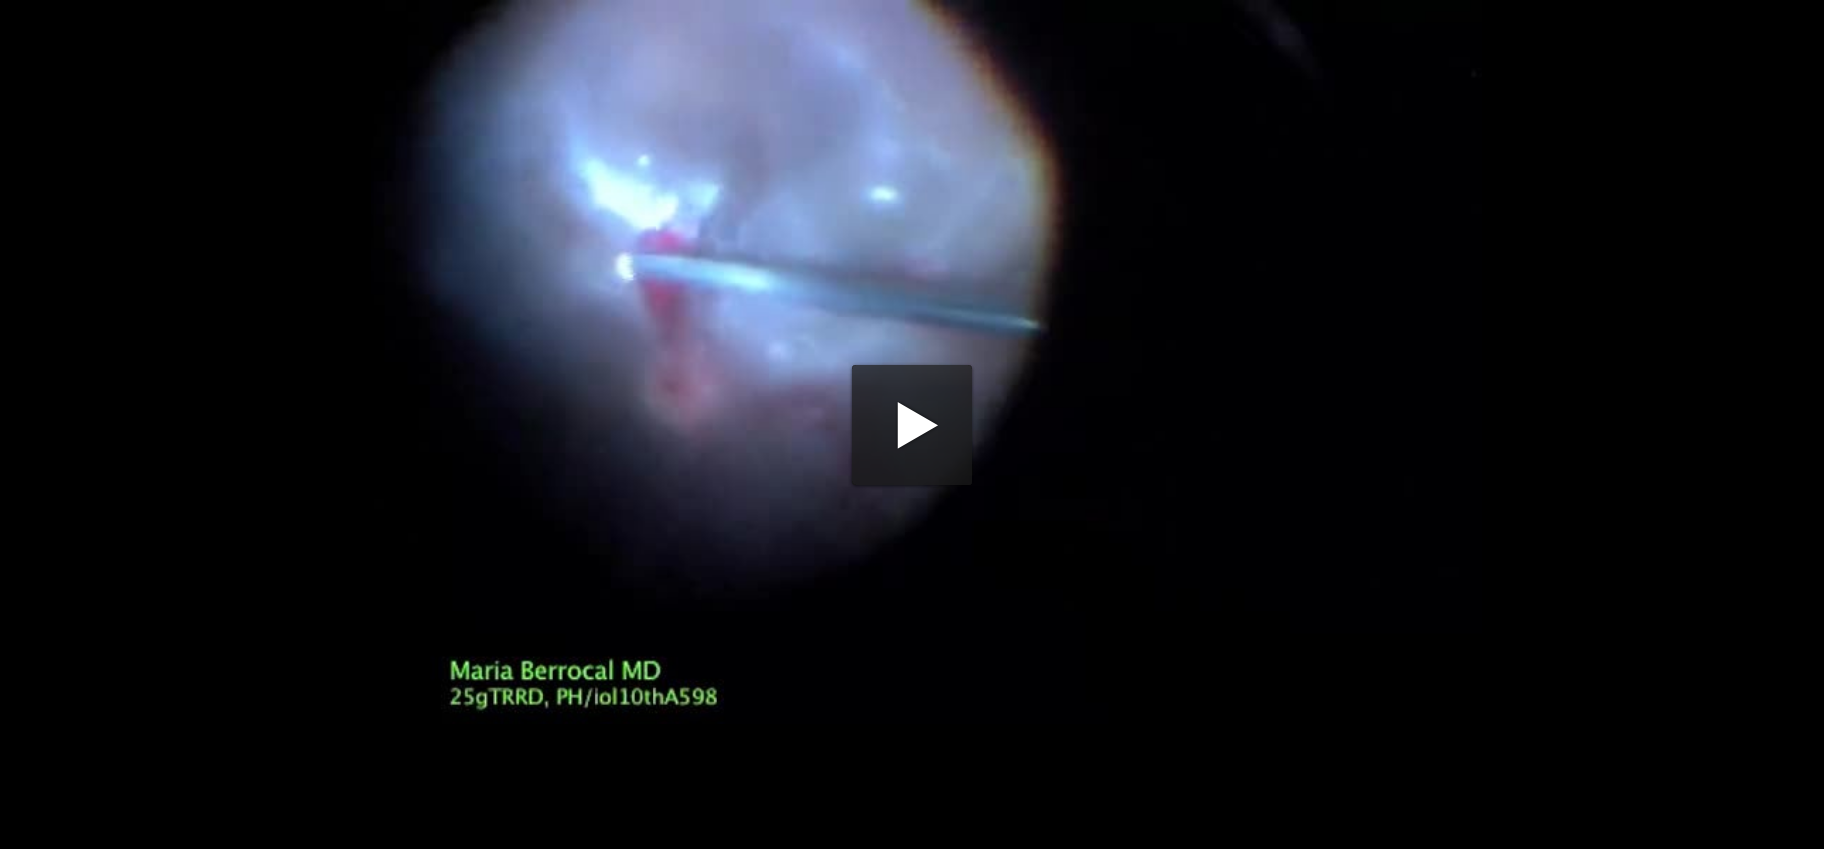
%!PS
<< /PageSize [1824 849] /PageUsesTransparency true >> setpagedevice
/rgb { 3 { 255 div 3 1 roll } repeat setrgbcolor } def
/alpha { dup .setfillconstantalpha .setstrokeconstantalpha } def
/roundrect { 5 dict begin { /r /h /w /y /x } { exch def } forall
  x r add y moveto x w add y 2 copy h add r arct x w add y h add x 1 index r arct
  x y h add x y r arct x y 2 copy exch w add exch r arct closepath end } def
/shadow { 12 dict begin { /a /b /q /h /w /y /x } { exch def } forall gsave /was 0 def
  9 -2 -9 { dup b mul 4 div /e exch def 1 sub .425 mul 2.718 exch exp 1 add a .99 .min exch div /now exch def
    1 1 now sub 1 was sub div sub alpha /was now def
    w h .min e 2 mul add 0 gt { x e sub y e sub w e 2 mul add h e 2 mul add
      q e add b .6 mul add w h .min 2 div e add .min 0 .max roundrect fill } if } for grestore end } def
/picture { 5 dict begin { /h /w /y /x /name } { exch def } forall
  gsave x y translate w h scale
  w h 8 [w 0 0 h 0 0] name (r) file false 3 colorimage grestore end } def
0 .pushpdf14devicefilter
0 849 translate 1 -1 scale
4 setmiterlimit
0 0 0 rgb
0 0 1824 849 rectfill
(img/1.rgb) 371 0 1111 724 picture
gsave
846 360 moveto 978 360 lineto 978 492 lineto 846 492 lineto closepath 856 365 moveto 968 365 lineto 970 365 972 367 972 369 curveto 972 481 lineto 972 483 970 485 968 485 curveto 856 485 lineto 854 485 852 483 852 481 curveto 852 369 lineto 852 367 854 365 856 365 curveto closepath eoclip newpath
852 366 120 120 4 1.5 0.6 shadow
grestore
0.5 alpha
25 25 25 rgb
852 365 120 120 4 roundrect fill
gsave 852 365 120 120 4 roundrect clip newpath
<< /ShadingType 2 /ColorSpace /DeviceRGB /Coords [912 365 912 485] /Extend [true true] /Function << /FunctionType 3 /Domain [0 1] /Functions [<< /FunctionType 2 /Domain [0 1] /C0 [0.137 0.137 0.137] /C1 [0.098 0.098 0.098] /N 1 >> << /FunctionType 2 /Domain [0 1] /C0 [0.098 0.098 0.098] /C1 [0.098 0.098 0.098] /N 1 >>] /Bounds [0.2] /Encode [0 1 0 1] >> >> shfill grestore
1 alpha
(img/2.rgb) 895 401 43 48 picture
.poppdf14devicefilter showpage
